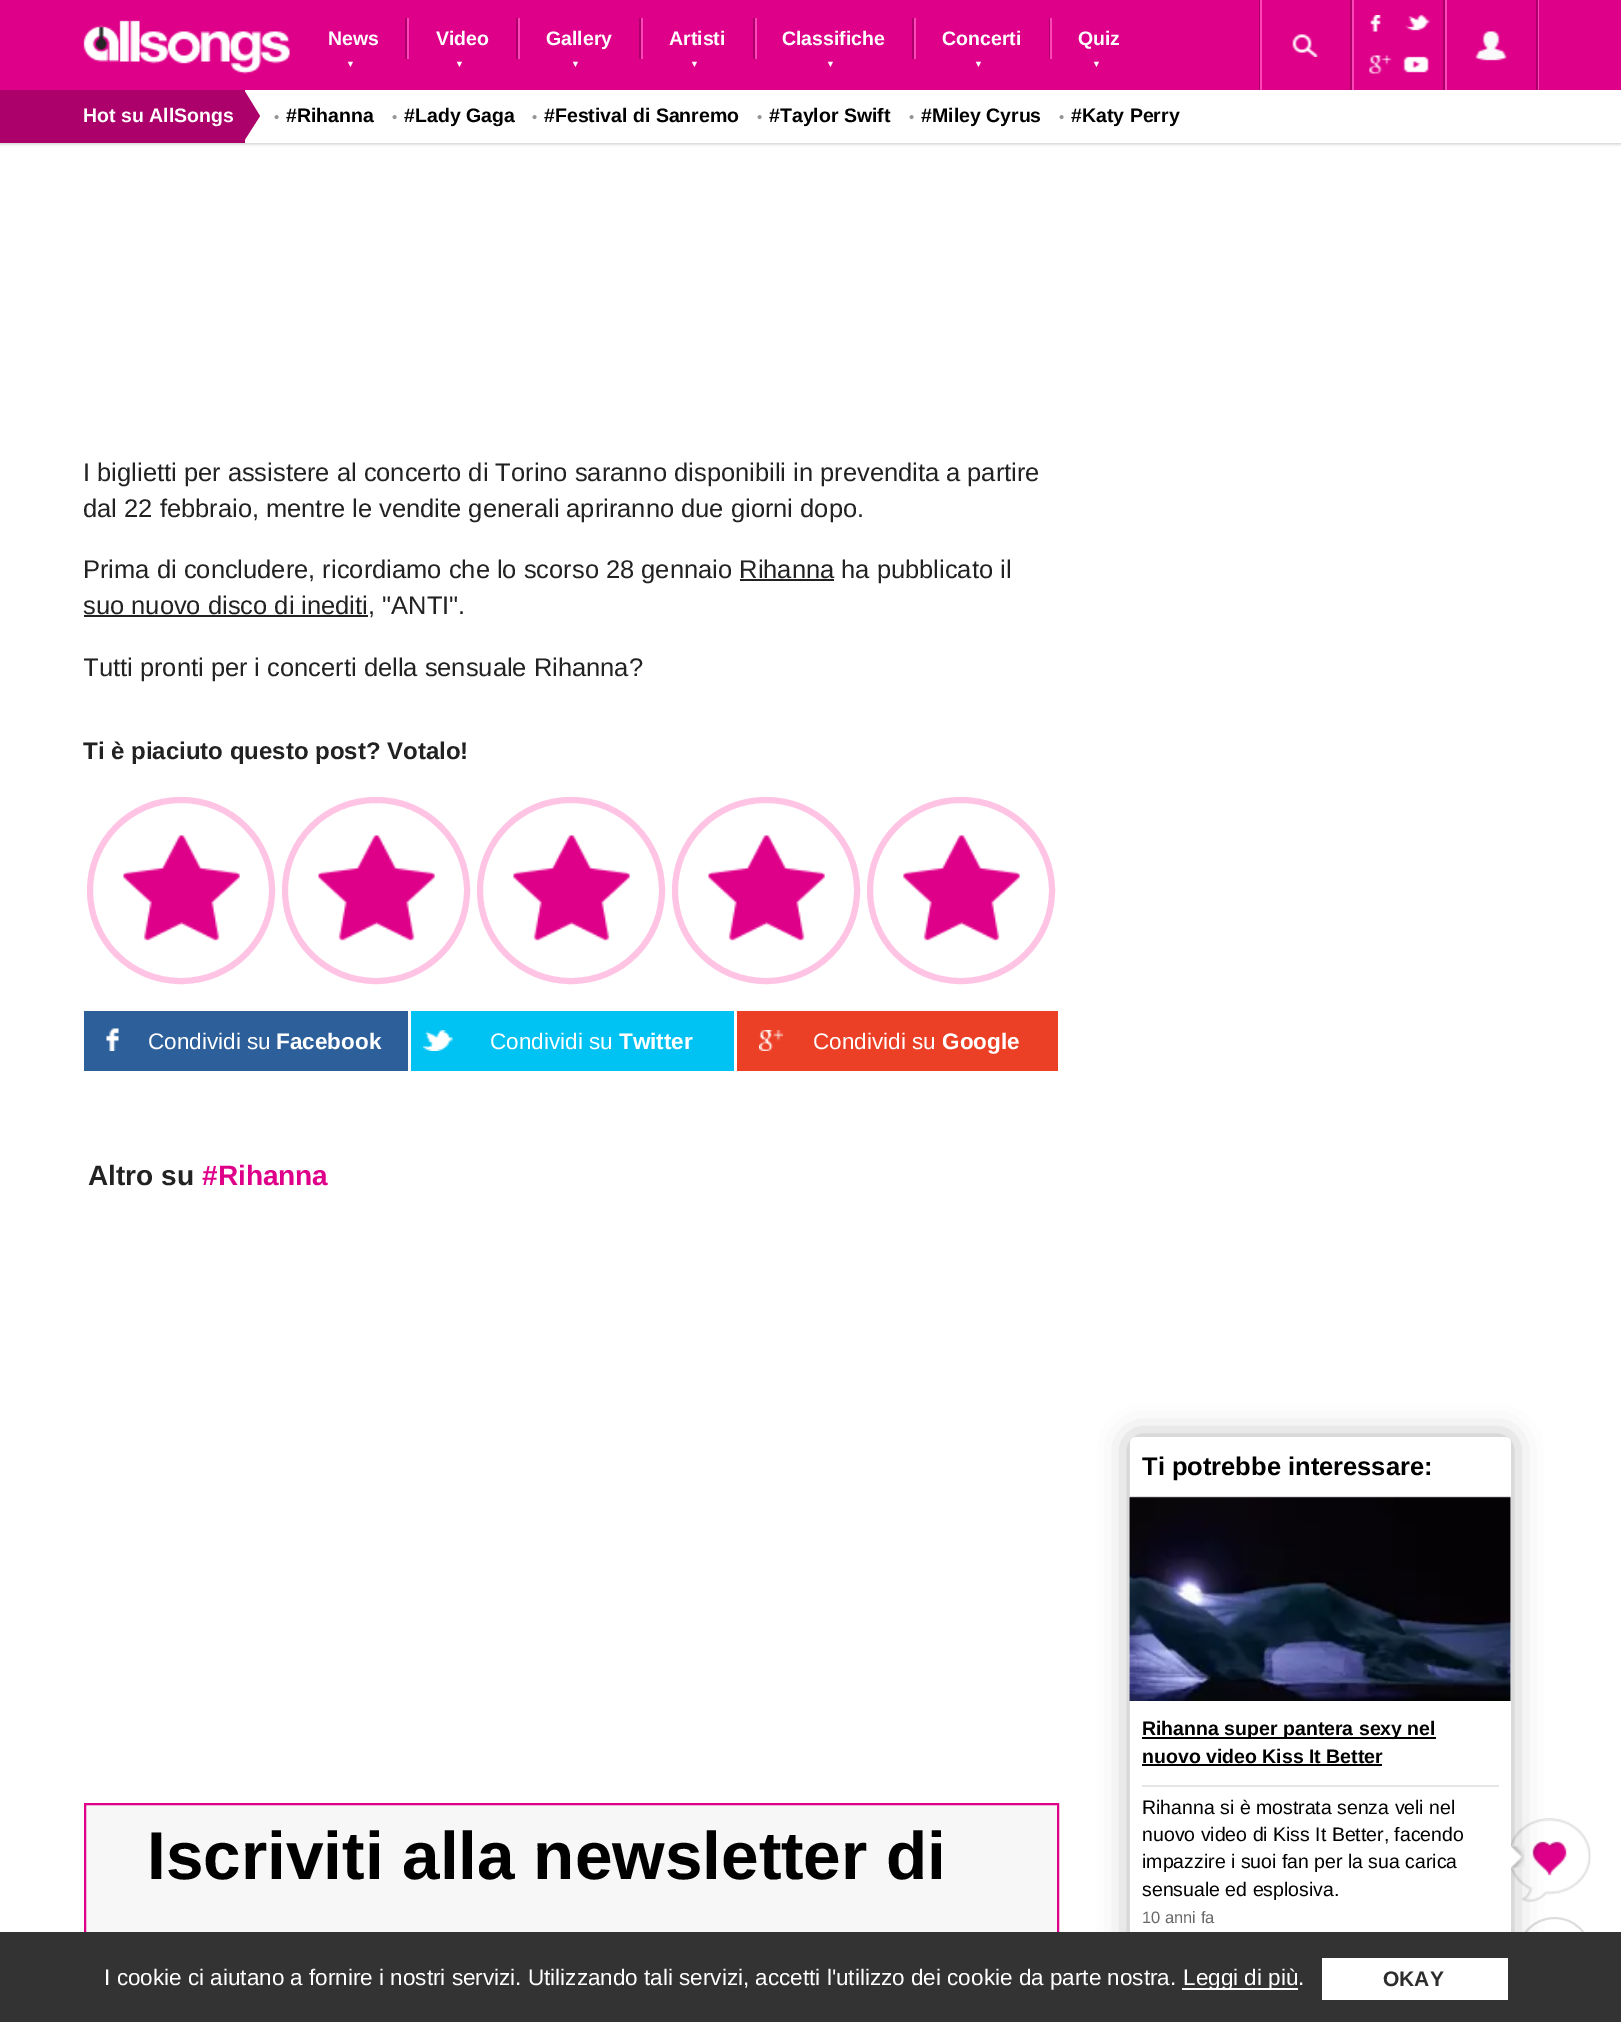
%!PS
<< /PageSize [1621 2022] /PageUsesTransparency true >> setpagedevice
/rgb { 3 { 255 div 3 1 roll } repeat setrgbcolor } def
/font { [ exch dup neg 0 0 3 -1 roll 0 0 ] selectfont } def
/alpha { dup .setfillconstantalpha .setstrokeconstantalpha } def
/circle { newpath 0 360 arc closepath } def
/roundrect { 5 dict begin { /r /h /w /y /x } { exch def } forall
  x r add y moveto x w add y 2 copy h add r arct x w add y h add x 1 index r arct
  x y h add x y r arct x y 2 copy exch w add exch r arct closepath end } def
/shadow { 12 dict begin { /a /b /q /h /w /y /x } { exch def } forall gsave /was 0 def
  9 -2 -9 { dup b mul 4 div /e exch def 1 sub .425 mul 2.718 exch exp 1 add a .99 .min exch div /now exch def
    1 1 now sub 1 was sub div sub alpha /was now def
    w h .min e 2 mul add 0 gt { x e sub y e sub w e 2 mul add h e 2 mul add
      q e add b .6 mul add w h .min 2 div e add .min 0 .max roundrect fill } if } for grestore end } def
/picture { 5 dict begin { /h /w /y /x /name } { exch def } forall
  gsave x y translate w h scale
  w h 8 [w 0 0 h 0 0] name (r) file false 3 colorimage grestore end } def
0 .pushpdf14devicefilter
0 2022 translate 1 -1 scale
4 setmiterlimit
255 255 255 rgb
0 0 1621 2022 rectfill
0 0 0 rgb
0 92 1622 52 0 1.5 0.2 shadow
223 0 138 rgb
0 0 1621 90 rectfill
(img/1.rgb) 83 20 207 54 picture
[
  [405 18 2 41 172 0 106]
  [516 18 2 41 172 0 106]
  [407 18 2 41 255 70 184]
  [639 18 2 41 172 0 106]
  [518 18 2 41 255 70 184]
  [753 18 2 41 172 0 106]
  [641 18 2 41 255 70 184]
  [912 18 2 41 172 0 106]
  [755 18 2 41 255 70 184]
  [1049 18 1 41 172 0 106]
  [914 18 2 41 255 70 184]
  [1050 18 2 41 255 70 184]
  [1259 0 1 90 172 0 106]
] { aload pop rgb rectfill } forall
(img/2.rgb) 1292 34 26 23 picture
[
  [1260 0 2 90 255 70 184]
  [1350 0 2 90 172 0 106]
  [1443 0 2 90 172 0 106]
  [1352 0 2 90 255 70 184]
] { aload pop rgb rectfill } forall
(img/3.rgb) 1370 15 11 17 picture
(img/4.rgb) 1405 14 25 17 picture
(img/5.rgb) 1369 55 23 19 picture
(img/6.rgb) 1403 56 26 17 picture
1538 0 1 90 rectfill
(img/7.rgb) 1475 31 32 30 picture
[
  [1536 0 2 90 172 0 106]
  [1445 0 2 90 255 70 184]
  [245 90 1376 53 255 255 255]
  [0 90 245 53 172 0 106]
] { aload pop rgb rectfill } forall
244 141 moveto 244 90 lineto 260 116 lineto closepath fill
34 34 34 rgb
740 579 94 2 rectfill
84 615 284 2 rectfill
(img/8.rgb) 123 835 117 106 picture
255 195 228 rgb
6 setlinewidth
90 800 182 181 90.5 roundrect stroke
(img/8.rgb) 318 835 117 106 picture
285 800 182 181 90.5 roundrect stroke
(img/8.rgb) 513 835 117 106 picture
480 800 182 181 90.5 roundrect stroke
(img/8.rgb) 708 835 117 106 picture
675 800 182 181 90.5 roundrect stroke
(img/9.rgb) 903 835 117 106 picture
870 800 182 181 90.5 roundrect stroke
45 96 155 rgb
84 1011 324 60 rectfill
(img/10.rgb) 106 1028 13 23 picture
0 195 243 rgb
411 1011 323 60 rectfill
(img/11.rgb) 423 1030 30 21 picture
235 64 38 rgb
737 1011 321 60 rectfill
(img/12.rgb) 759 1030 24 21 picture
247 247 247 rgb
86 1805 971 127 rectfill
223 0 138 rgb
2 setlinewidth
85 1804 973 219 rectstroke
(img/13.rgb) 1511 1818 80 84 picture
(img/16.rgb) 1511 1818 80 84 picture
222 222 222 rgb
1554.5 1954.5 36.5 circle stroke
0 0 0 rgb
1130 1437 381 570 6 15 0.3 shadow
255 255 255 rgb
1136 1437 moveto 1505 1437 lineto 1508.5 1437 1511 1439.5 1511 1443 curveto 1511 2007 lineto 1130 2007 lineto 1130 1443 lineto 1130 1439.5 1132.5 1437 1136 1437 curveto closepath fill
(img/14.rgb) 1129 1496 382 205 picture
[
  [1142 1737 294 2 0 0 0]
  [1142 1764 240 2 0 0 0]
  [1142 1785 357 2 230 230 230]
] { aload pop rgb rectfill } forall
(img/15.rgb) 1511 1846 14 22 picture
[
  [0 1932 1621 90 51 51 51]
  [1182 1988 116 2 255 255 255]
  [1322 1958 186 42 255 255 255]
] { aload pop rgb rectfill } forall
/LiberationSans-Bold 19.5 font
328 45 moveto (News) show
/LiberationSans-Bold 9 font
346 67 moveto 9 0 (▼) ashow
/LiberationSans-Bold 19.5 font
436 45 moveto (Video) show
/LiberationSans-Bold 9 font
455 67 moveto 9 0 (▼) ashow
/LiberationSans-Bold 19.5 font
546 45 moveto (Gallery) show
/LiberationSans-Bold 9 font
571 67 moveto 9 0 (▼) ashow
/LiberationSans-Bold 19.5 font
669 45 moveto (Artisti) show
/LiberationSans-Bold 9 font
690 67 moveto 9 0 (▼) ashow
/LiberationSans-Bold 19.5 font
782 45 moveto (Classifiche) show
/LiberationSans-Bold 9 font
826 67 moveto 9 0 (▼) ashow
/LiberationSans-Bold 19.5 font
942 45 moveto (Concerti) show
/LiberationSans-Bold 9 font
974 67 moveto 9 0 (▼) ashow
/LiberationSans-Bold 19.5 font
1078 45 moveto (Quiz) show
/LiberationSans-Bold 9 font
1092 67 moveto 9 0 (▼) ashow
/LiberationSans-Bold 19.5 font
83 122 moveto (Hot su AllSongs) show
/LiberationSans-Regular 15 font
150 150 150 rgb
274 122 moveto (•) show
/LiberationSans-Bold 19.5 font
0 0 0 rgb
286 122 moveto (#Rihanna) show
/LiberationSans-Regular 15 font
150 150 150 rgb
392 122 moveto (•) show
/LiberationSans-Bold 19.5 font
0 0 0 rgb
404 122 moveto (#Lady Gaga) show
/LiberationSans-Regular 15 font
150 150 150 rgb
532 122 moveto (•) show
/LiberationSans-Bold 19.5 font
0 0 0 rgb
544 122 moveto (#Festival di Sanremo) show
/LiberationSans-Regular 15 font
150 150 150 rgb
757 122 moveto (•) show
/LiberationSans-Bold 19.5 font
0 0 0 rgb
769 122 moveto (#Taylor Swift) show
/LiberationSans-Regular 15 font
150 150 150 rgb
909 122 moveto (•) show
/LiberationSans-Bold 19.5 font
0 0 0 rgb
921 122 moveto (#Miley Cyrus) show
/LiberationSans-Regular 15 font
150 150 150 rgb
1059 122 moveto (•) show
/LiberationSans-Bold 19.5 font
0 0 0 rgb
1071 122 moveto (#Katy Perry) show
/LiberationSans-Regular 25.5 font
34 34 34 rgb
[
  [(I biglietti per assistere al concerto di Torino saranno disponibili in prevendita a partire) 83 481]
  [(dal 22 febbraio, mentre le vendite generali apriranno due giorni dopo.) 83 517]
  [(Prima di concludere, ricordiamo che lo scorso 28 gennaio Rihanna ha pubblicato il) 83 578]
  [(suo nuovo disco di inediti, "ANTI".) 83 614]
] { aload pop moveto show } forall
gsave
84 0 975 711 rectclip
83 676 moveto (Tutti pronti per i concerti della sensuale Rihanna?) show
grestore
/LiberationSans-Bold 24 font
83 759 moveto (Ti è piaciuto questo post? Votalo!) show
/LiberationSans-Regular 22.5 font
255 255 255 rgb
148 1049 moveto (Condividi su) show
/LiberationSans-Bold 22.5 font
276 1049 moveto (Facebook) show
/LiberationSans-Regular 22.5 font
490 1049 moveto (Condividi su) show
/LiberationSans-Bold 22.5 font
619 1049 moveto (Twitter) show
/LiberationSans-Regular 22.5 font
813 1049 moveto (Condividi su) show
/LiberationSans-Bold 22.5 font
942 1049 moveto (Google) show
/LiberationSans-Bold 28 font
34 34 34 rgb
88 1185 moveto (Altro su) show
223 0 138 rgb
202 1185 moveto (#Rihanna) show
/LiberationSans-Bold 67.5 font
0 0 0 rgb
147 1879 moveto (Iscriviti alla newsletter di) show
/LiberationSans-Bold 25.5 font
1142 1475 moveto (Ti potrebbe interessare:) show
/LiberationSans-Bold 19.5 font
1142 1735 moveto (Rihanna super pantera sexy nel) show
1142 1763 moveto (nuovo video Kiss It Better) show
/LiberationSans-Regular 19.5 font
[
  [(Rihanna si è mostrata senza veli nel) 1142 1814]
  [(nuovo video di Kiss It Better, facendo) 1142 1841]
  [(impazzire i suoi fan per la sua carica) 1142 1868]
  [(sensuale ed esplosiva.) 1142 1896]
] { aload pop moveto show } forall
/LiberationSans-Regular 16.5 font
102 102 102 rgb
1142 1923 moveto (10 anni fa) show
/LiberationSans-Regular 22.5 font
255 255 255 rgb
104 1985 moveto (I cookie ci aiutano a fornire i nostri servizi. Utilizzando tali servizi, accetti l'utilizzo dei cookie da parte nostra.) show
1183 1985 moveto (Leggi di più.) show
/LiberationSans-Bold 21 font
45 45 45 rgb
1383 1986 moveto (OKAY) show
.poppdf14devicefilter showpage
